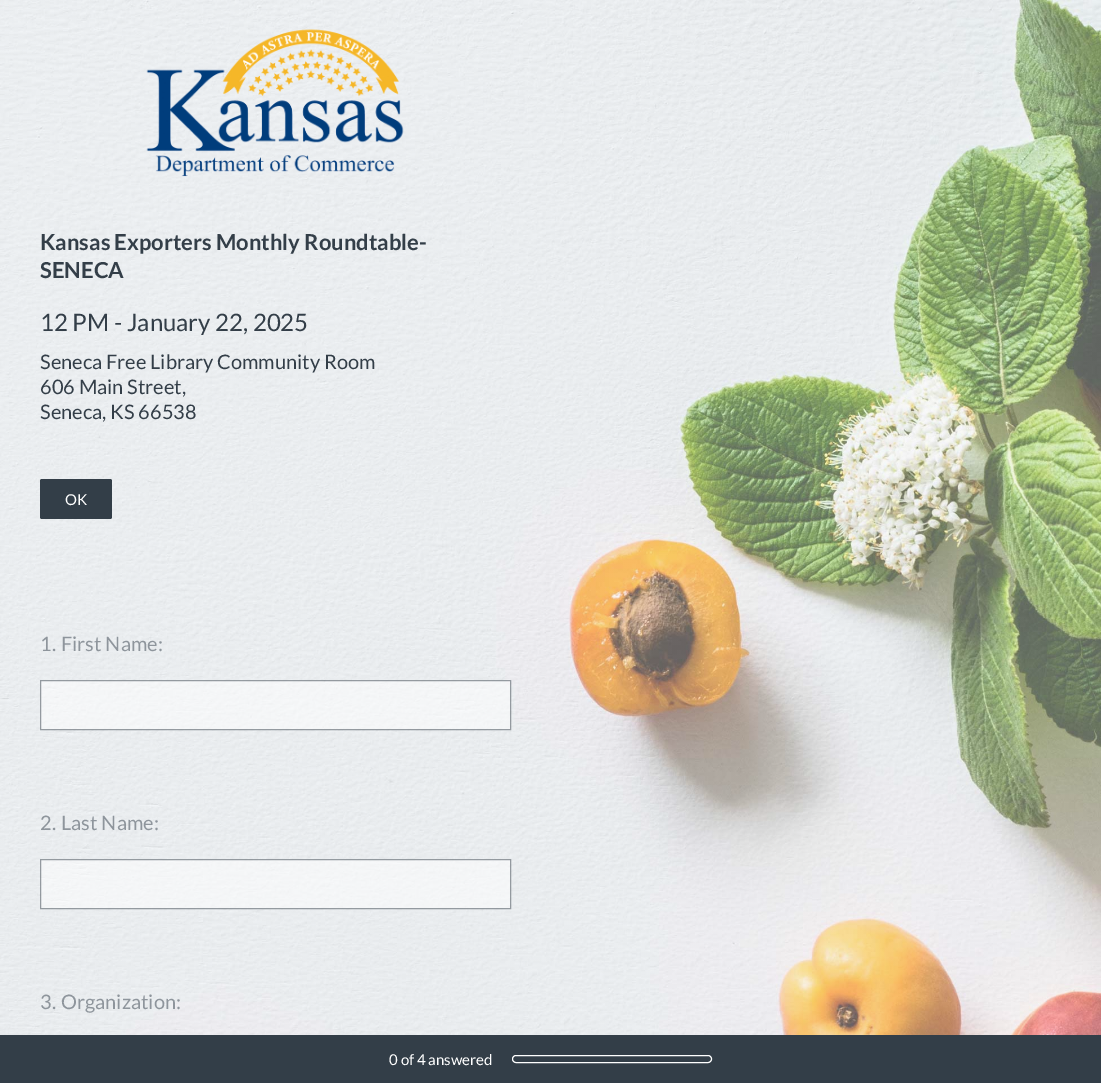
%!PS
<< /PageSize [1101 1083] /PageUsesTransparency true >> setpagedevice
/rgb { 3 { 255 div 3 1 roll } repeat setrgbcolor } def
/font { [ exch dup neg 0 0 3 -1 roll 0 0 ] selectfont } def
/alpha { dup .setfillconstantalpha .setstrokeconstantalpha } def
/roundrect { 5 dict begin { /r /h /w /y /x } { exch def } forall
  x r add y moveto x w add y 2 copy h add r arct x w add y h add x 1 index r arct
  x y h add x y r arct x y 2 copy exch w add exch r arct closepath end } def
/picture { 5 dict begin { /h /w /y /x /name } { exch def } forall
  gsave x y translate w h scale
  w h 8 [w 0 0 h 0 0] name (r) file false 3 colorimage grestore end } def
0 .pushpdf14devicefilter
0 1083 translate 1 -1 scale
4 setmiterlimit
255 255 255 rgb
0 0 1101 1083 rectfill
(img/1.rgb) 0 0 1101 1035 picture
(img/2.rgb) 146 29 258 148 picture
51 62 72 rgb
40 479 72 40 2 roundrect fill
0.5 alpha
255 255 255 rgb
40 680 471 50 rectfill
51 62 72 rgb
40.5 680.5 470 49 rectstroke
255 255 255 rgb
40 859 471 50 rectfill
51 62 72 rgb
40.5 859.5 470 49 rectstroke
1 alpha
0 1035 1101 48 rectfill
255 255 255 rgb
512.5 1055.5 199 7 3.5 roundrect stroke
/Lato-Bold 22 font
51 62 72 rgb
40 250 moveto (Kansas Exporters Monthly Roundtable-) show
40 278 moveto (SENECA) show
/Lato-Regular 24 font
40 331 moveto (12 PM - January 22, 2025) show
/Lato-Regular 20 font
[
  [(Seneca Free Library Community Room) 40 369]
  [(606 Main Street,) 40 394]
  [(Seneca, KS 66538) 40 419]
] { aload pop moveto show } forall
/Lato-Regular 15 font
255 255 255 rgb
65 505 moveto (OK) show
/Lato-Regular 20 font
142 149 156 rgb
[
  [(1) 40 651]
  [(.) 52 651]
  [(First Name:) 61 651]
  [(2.) 40 830]
  [(Last Name:) 61 830]
  [(3) 40 1009]
  [(.) 52 1009]
  [(Organization:) 61 1009]
] { aload pop moveto show } forall
/Lato-Regular 15 font
255 255 255 rgb
389 1065 moveto (0 of 4 answered) show
.poppdf14devicefilter showpage
